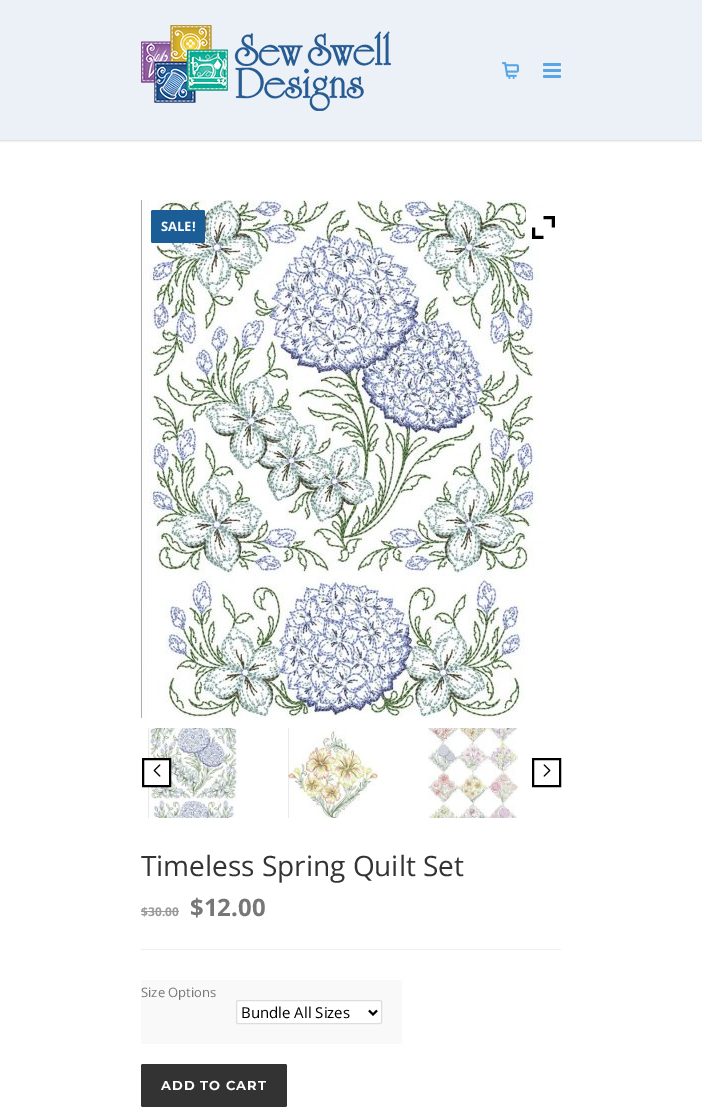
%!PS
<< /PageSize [702 1110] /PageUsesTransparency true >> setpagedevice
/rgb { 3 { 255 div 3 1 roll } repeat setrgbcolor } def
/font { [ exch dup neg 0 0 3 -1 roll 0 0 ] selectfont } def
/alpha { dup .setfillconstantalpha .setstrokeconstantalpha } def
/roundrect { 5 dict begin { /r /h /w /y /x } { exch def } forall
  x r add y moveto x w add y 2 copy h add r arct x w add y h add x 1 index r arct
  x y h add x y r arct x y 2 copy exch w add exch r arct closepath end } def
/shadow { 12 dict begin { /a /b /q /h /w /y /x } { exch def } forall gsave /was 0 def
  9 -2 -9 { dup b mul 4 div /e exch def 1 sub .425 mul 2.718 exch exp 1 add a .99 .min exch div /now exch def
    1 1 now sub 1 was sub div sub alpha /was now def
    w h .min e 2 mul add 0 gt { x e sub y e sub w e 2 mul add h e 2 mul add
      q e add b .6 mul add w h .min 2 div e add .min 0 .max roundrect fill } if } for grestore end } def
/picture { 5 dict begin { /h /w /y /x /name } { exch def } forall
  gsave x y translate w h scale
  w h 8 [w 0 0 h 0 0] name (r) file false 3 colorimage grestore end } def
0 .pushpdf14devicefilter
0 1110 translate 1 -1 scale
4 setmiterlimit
255 255 255 rgb
0 0 702 1110 rectfill
0 0 0 rgb
-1 -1 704 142 0 1 0.16 shadow
235 241 247 rgb
0 0 702 140 rectfill
(img/1.rgb) 141 25 250 86 picture
(img/2.rgb) 502 62 17 17 picture
(img/3.rgb) 543 63 18 15 picture
(img/4.rgb) 141 200 400 518 picture
255 255 255 rgb
526 210 15 18 rectfill
(img/5.rgb) 532 216 23 23 picture
(img/6.rgb) 148 728 90 90 picture
(img/7.rgb) 288 728 90 90 picture
(img/8.rgb) 428 728 90 90 picture
148 760 21 25 rectfill
0 0 0 rgb
2 setlinewidth
143 759 27 27 rectstroke
(img/9.rgb) 153 764 8 13 picture
533 759 27 27 rectstroke
(img/10.rgb) 543 764 8 13 picture
27 94 151 rgb
151 210 54 33 2 roundrect fill
239 239 239 rgb
141 949 420 1 rectfill
153 153 153 rgb
141 911 38 1 rectfill
249 249 249 rgb
141 980 261 64 2 roundrect fill
255 255 255 rgb
236.5 1000.5 145 23 1.5 roundrect gsave fill grestore
221 221 221 rgb
1 setlinewidth
stroke
0 0 0 rgb
2 setlinewidth
369 1010.5 moveto 373 1014.5 lineto 377 1010.5 lineto stroke
51 51 51 rgb
141 1064 146 43 2 roundrect fill
/OpenSans-Bold 13 font
255 255 255 rgb
161 231 moveto (SALE!) show
/OpenSans-Regular 28 font
51 51 51 rgb
141 876 moveto (Timeless Spring Quilt Set) show
/OpenSans-Bold 12 font
153 153 153 rgb
141 916 moveto ($30.00) show
/OpenSans-Bold 24 font
119 119 119 rgb
190 916 moveto ($12.00) show
/OpenSans-Regular 13 font
141 997 moveto (Size Options) show
/OpenSans-Regular 15 font
0 0 0 rgb
241 1018 moveto (Bundle All Sizes) show
/Montserrat-Bold 13 font
255 255 255 rgb
161 1090 moveto 1 0 (ADD TO CART) ashow
.poppdf14devicefilter showpage
